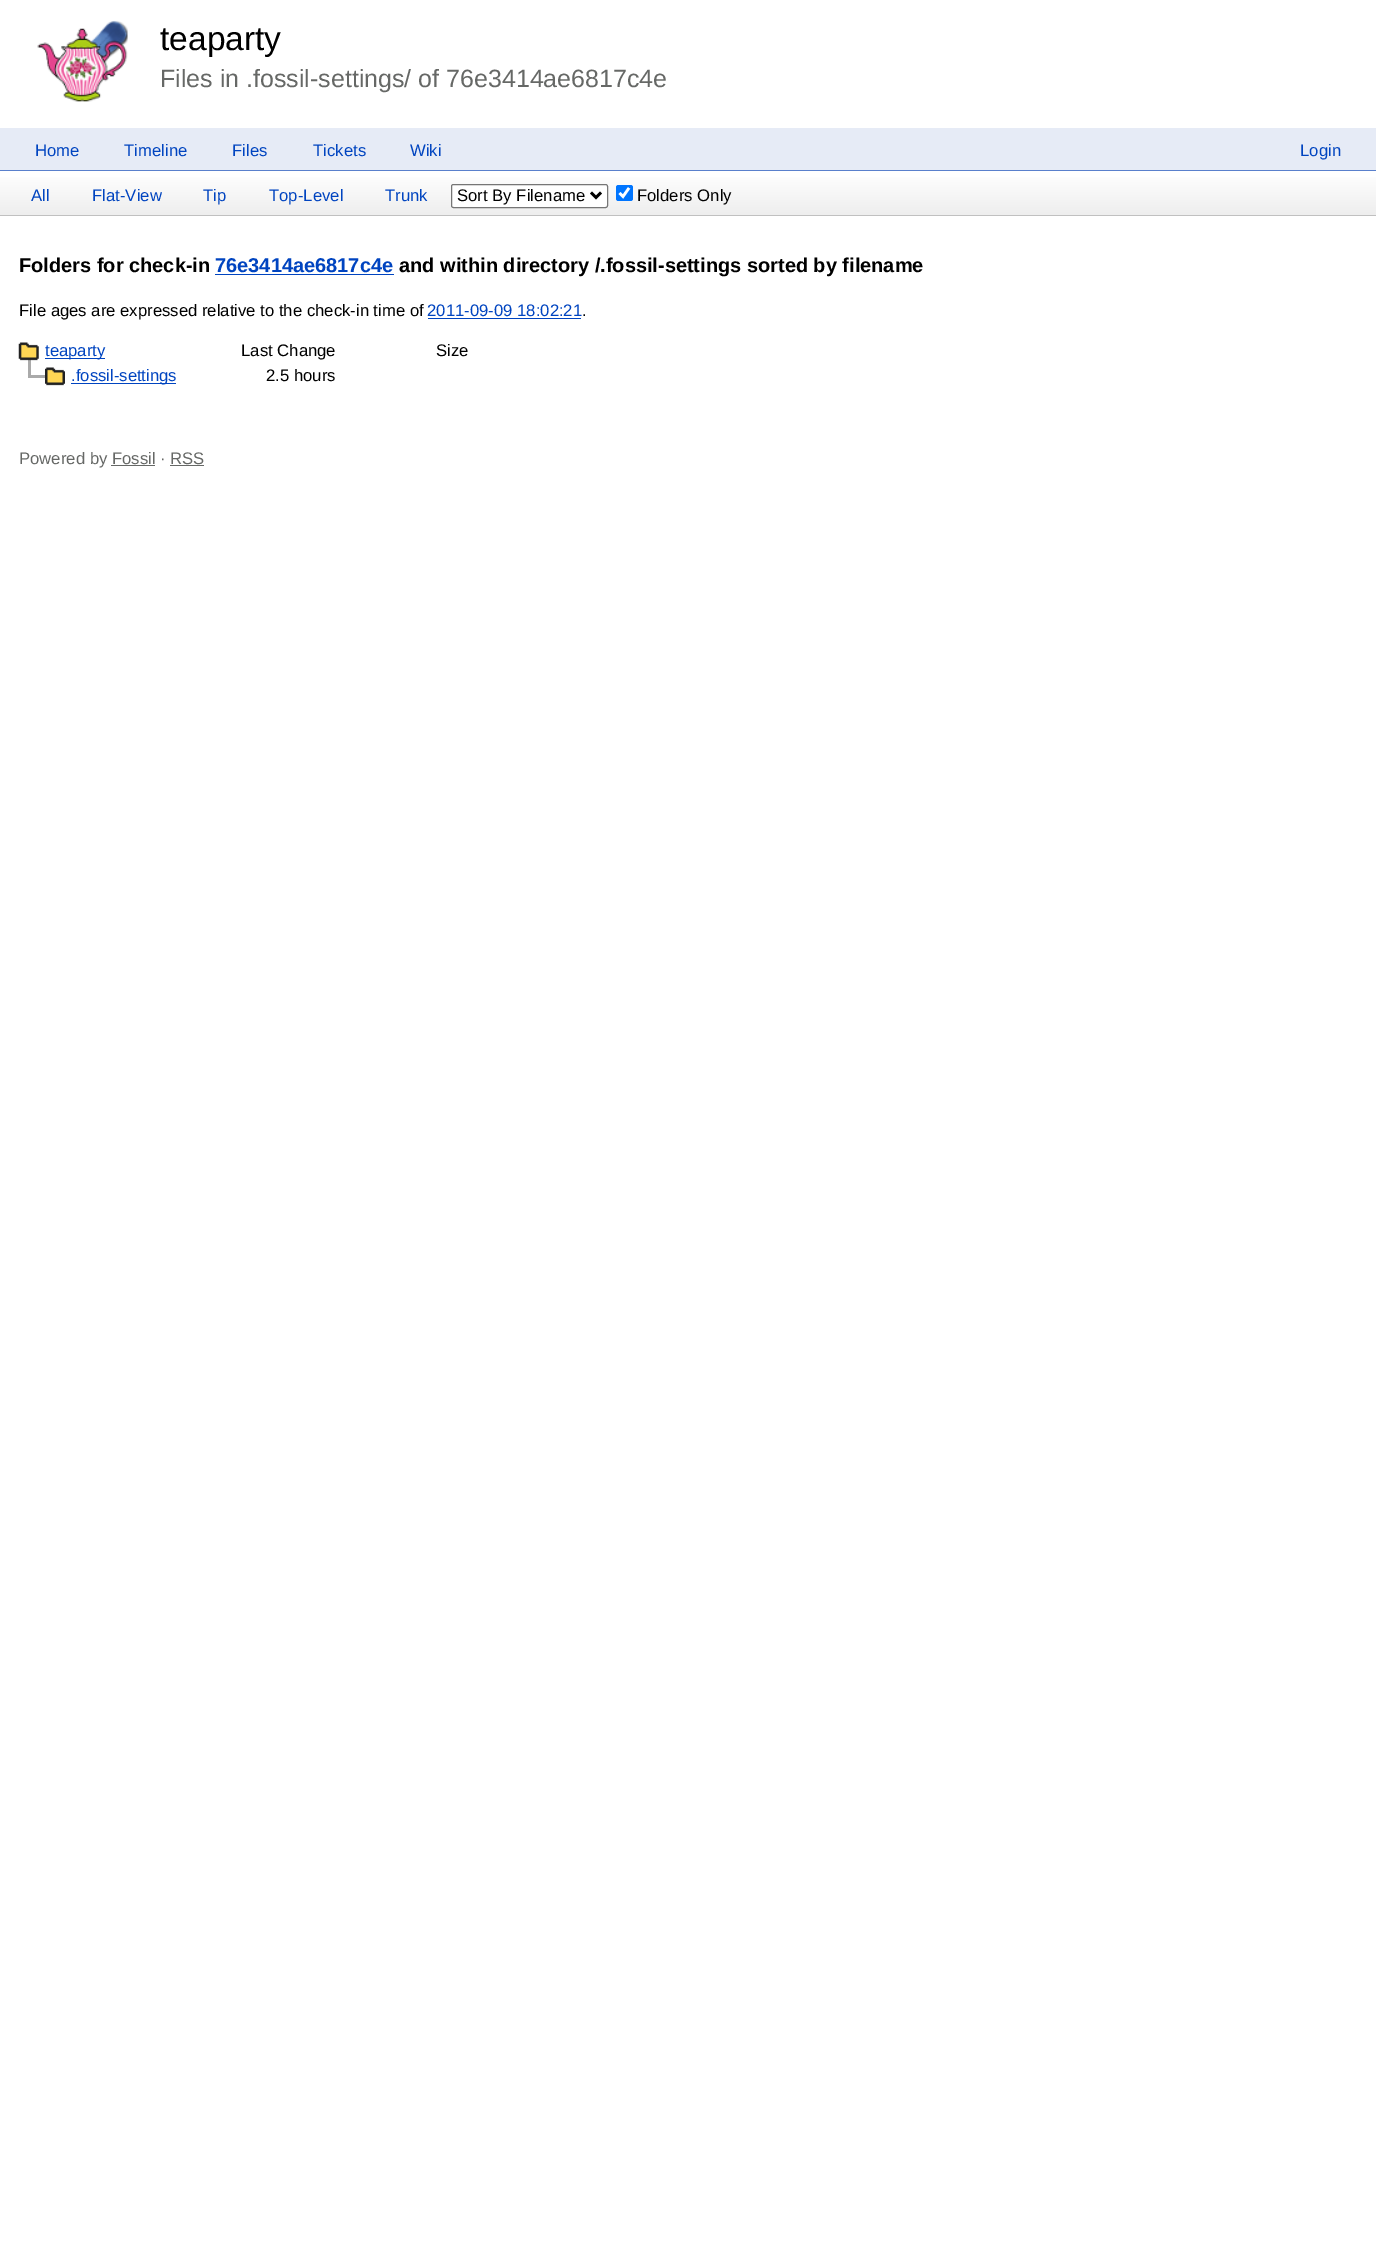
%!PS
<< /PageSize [1376 2256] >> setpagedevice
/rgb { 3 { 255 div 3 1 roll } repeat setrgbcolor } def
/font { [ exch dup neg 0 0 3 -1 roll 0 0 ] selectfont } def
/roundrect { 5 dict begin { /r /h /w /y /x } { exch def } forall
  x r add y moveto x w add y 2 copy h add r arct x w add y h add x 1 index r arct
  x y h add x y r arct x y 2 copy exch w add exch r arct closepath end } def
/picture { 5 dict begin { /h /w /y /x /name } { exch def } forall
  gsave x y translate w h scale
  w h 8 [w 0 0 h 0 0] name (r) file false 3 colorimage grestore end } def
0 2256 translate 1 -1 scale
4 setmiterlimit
255 255 255 rgb
0 0 1376 2256 rectfill
(img/1.rgb) 37 20 91 82 picture
230 235 246 rgb
0 128 1376 42 rectfill
89 128 204 rgb
0 170 1376 1 rectfill
gsave 0 177 moveto 1376 177 lineto 1376 215 lineto 0 215 lineto closepath clip newpath
<< /ShadingType 2 /ColorSpace /DeviceRGB /Coords [0 215 0 171] /Extend [true true] /Function << /FunctionType 2 /Domain [0 1] /C0 [0.933 0.933 0.933] /C1 [1 1 1] /N 1 >> >> shfill grestore
192 192 192 rgb
0 215 1376 1 rectfill
255 255 255 rgb
451.5 184.5 156 23 2 roundrect gsave fill grestore
118 118 118 rgb
stroke
0 0 0 rgb
2.5 setlinewidth
591 192.5 moveto 596 197.5 lineto 601 192.5 lineto stroke
0 117 255 rgb
616 185 17 16 2.5 roundrect fill
255 255 255 rgb
2.6 setlinewidth
619.5 193 moveto 623 196.5 lineto 629 188 lineto stroke
[
  [215 274 179 1 0 68 192]
  [428 318 153 1 0 68 192]
  [28 375 20 3 170 170 170]
  [28 359 3 19 170 170 170]
] { aload pop rgb rectfill } forall
(img/2.rgb) 18 342 21 19 picture
0 68 192 rgb
45 358 60 1 rectfill
(img/3.rgb) 45 367 20 19 picture
[
  [71 383 105 1 0 68 192]
  [111 465 44 1 102 104 102]
  [170 465 34 1 102 104 102]
] { aload pop rgb rectfill } forall
/LiberationSans-Regular 33.5 font
0 0 0 rgb
160 50 moveto (teaparty) show
/LiberationSans-Regular 25 font
102 104 102 rgb
160 87 moveto (Files in .fossil-settings/ of 76e3414ae6817c4e) show
/LiberationSans-Regular 16.7 font
0 68 192 rgb
[
  [(Home) 35 156]
  [(Timeline) 124 156]
  [(Files) 232 156]
  [(Tickets) 313 156]
  [(Wiki) 410 156]
  [(Login) 1300 156]
  [(All) 31 201]
  [(Flat-View) 92 201]
  [(Tip) 203 201]
  [(Top-Level) 269 201]
  [(Trunk) 385 201]
] { aload pop moveto show } forall
0 0 0 rgb
457 201 moveto (Sort By Filename) show
637 201 moveto (Folders Only) show
/LiberationSans-Bold 20 font
19 272 moveto (Folders for check-in) show
0 68 192 rgb
215 272 moveto (76e3414ae6817c4e) show
0 0 0 rgb
399 272 moveto (and within directory /.fossil-settings sorted by filename) show
/LiberationSans-Regular 16.7 font
19 316 moveto (File ages are expressed relative to the check-in time of) show
0 68 192 rgb
427 316 moveto (2011-09-09 18:02:21) show
0 0 0 rgb
582 316 moveto (.) show
0 68 192 rgb
45 356 moveto (teaparty) show
0 0 0 rgb
241 356 moveto (Last Change) show
436 356 moveto (Size) show
0 68 192 rgb
71 381 moveto (.fossil-settings) show
0 0 0 rgb
266 381 moveto (2.5 hours) show
102 104 102 rgb
19 464 moveto (Powered by Fossil · RSS) show
showpage
